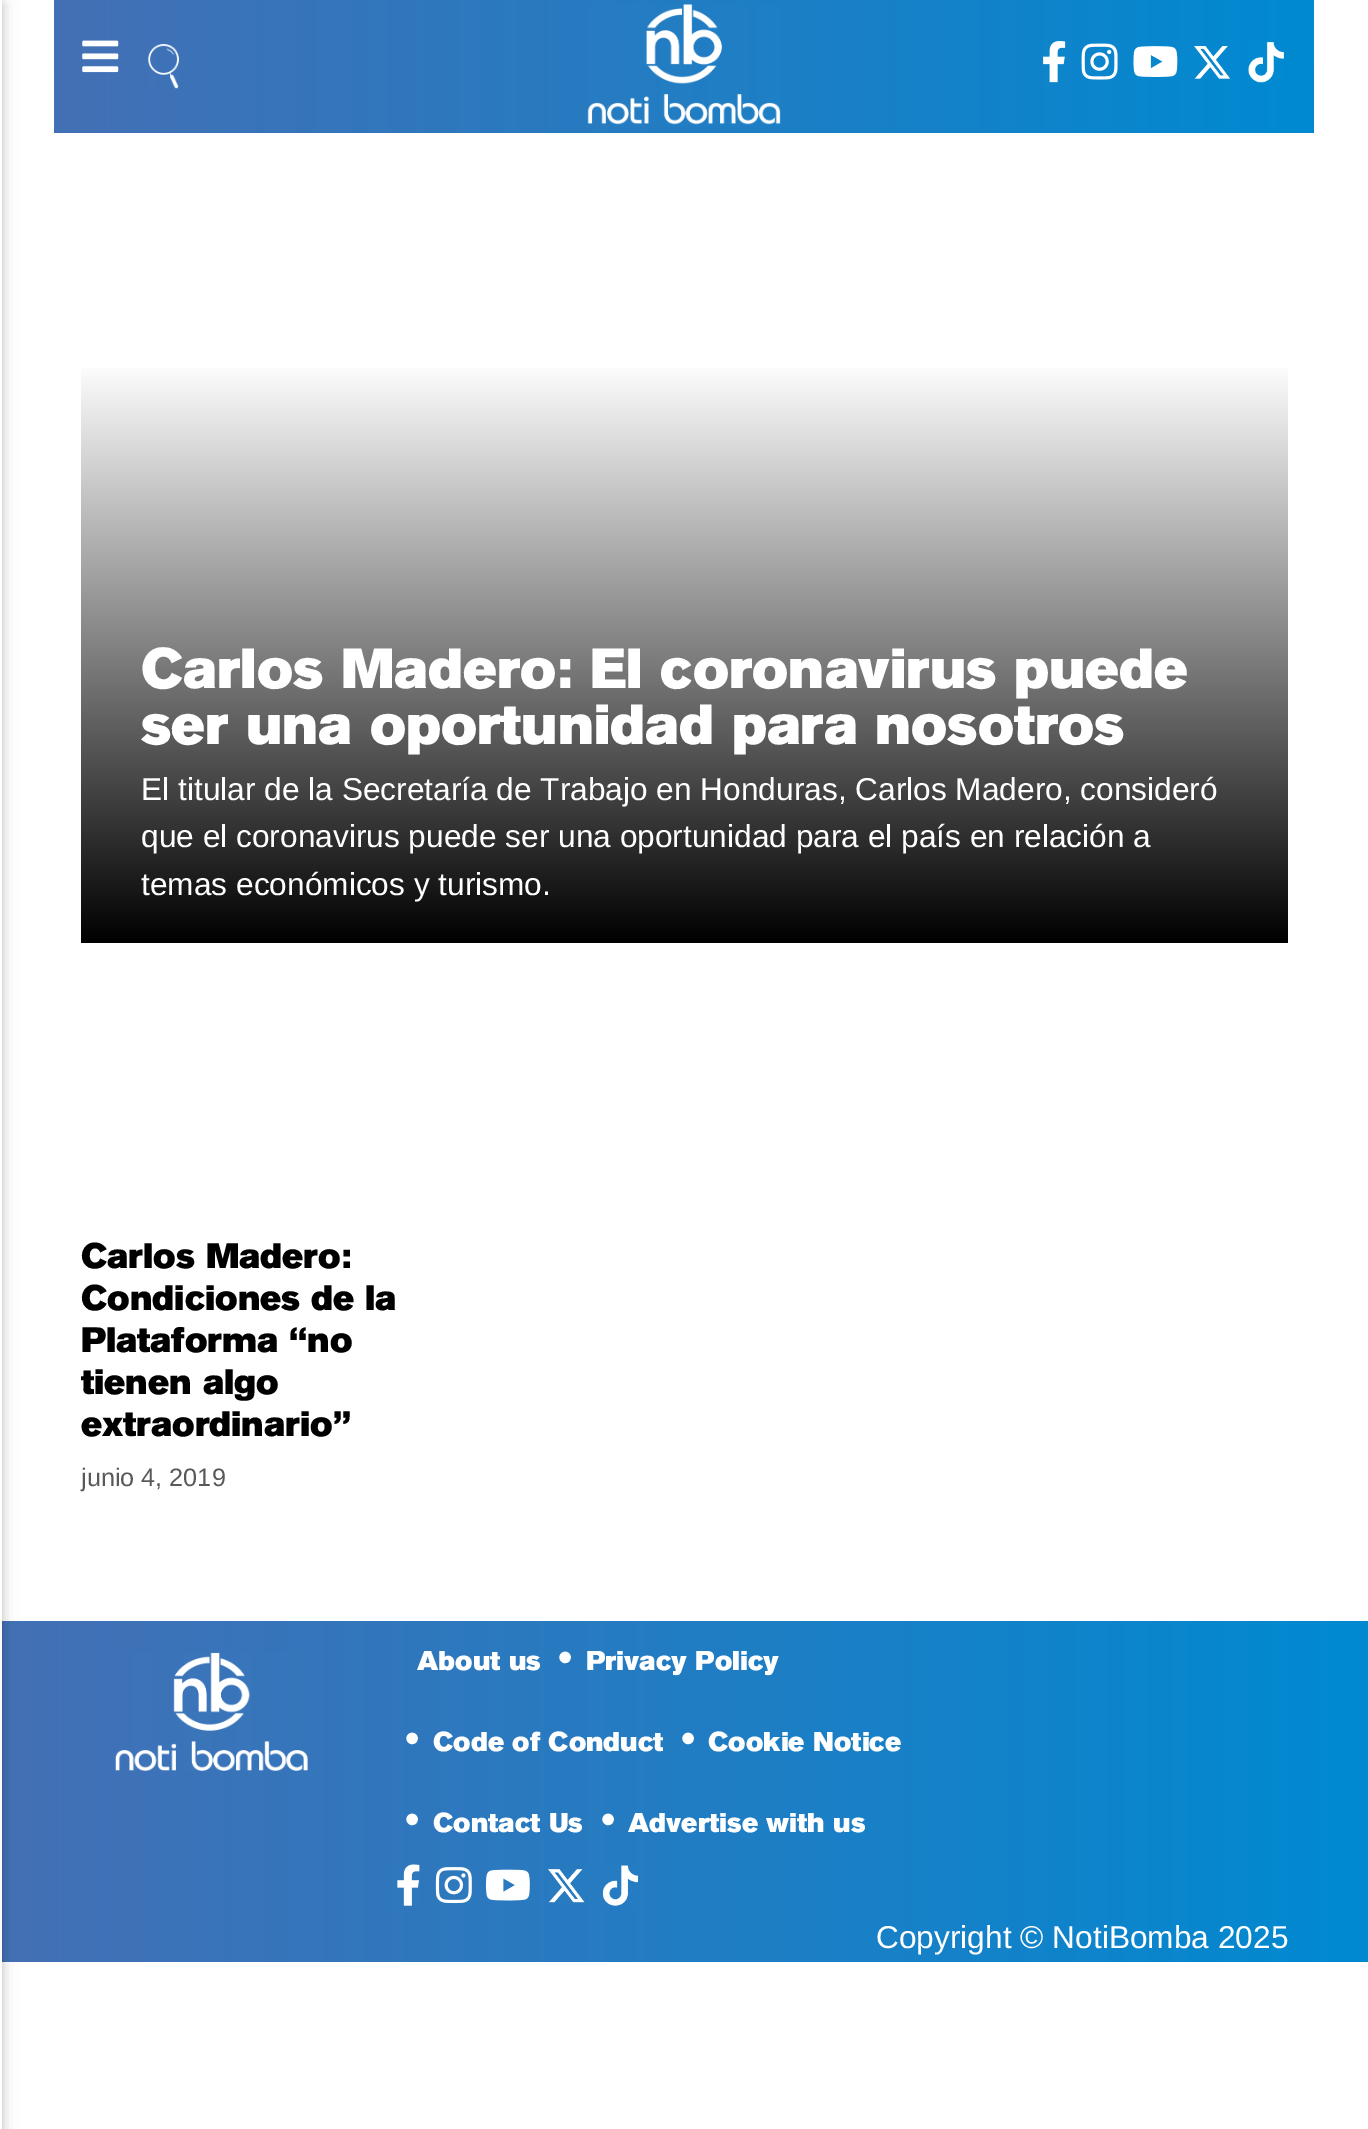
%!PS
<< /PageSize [1368 2129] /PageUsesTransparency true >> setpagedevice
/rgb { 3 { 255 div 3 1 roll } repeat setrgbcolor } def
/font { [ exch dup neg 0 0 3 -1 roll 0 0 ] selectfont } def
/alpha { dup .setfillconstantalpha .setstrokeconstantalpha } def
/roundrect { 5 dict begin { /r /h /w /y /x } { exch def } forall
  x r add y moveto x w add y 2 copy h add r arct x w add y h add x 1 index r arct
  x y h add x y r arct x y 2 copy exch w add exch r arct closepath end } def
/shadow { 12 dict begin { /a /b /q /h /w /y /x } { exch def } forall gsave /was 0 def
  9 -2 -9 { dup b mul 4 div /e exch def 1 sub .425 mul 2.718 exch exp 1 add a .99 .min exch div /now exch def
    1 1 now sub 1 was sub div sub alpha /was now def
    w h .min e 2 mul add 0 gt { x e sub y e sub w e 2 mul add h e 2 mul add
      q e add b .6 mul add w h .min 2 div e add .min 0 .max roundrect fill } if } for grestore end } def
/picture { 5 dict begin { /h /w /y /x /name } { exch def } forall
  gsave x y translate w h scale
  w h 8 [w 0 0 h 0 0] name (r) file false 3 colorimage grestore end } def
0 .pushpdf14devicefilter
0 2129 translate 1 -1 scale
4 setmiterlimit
255 255 255 rgb
0 0 1368 2129 rectfill
gsave 2 1621 moveto 1368 1621 lineto 1368 1962 lineto 2 1962 lineto closepath clip newpath
<< /ShadingType 2 /ColorSpace /DeviceRGB /Coords [0 1791 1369 1791] /Extend [true true] /Function << /FunctionType 2 /Domain [0 1] /C0 [0.267 0.439 0.71] /C1 [0 0.541 0.82] /N 1 >> >> shfill grestore
0 0 0 rgb
-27 4 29 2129 0 9 0.12 shadow
-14 4 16 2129 0 4.5 0.16 shadow
255 255 255 rgb
0 0 2 2129 rectfill
gsave 54 0 moveto 1314 0 lineto 1314 133 lineto 54 133 lineto closepath clip newpath
<< /ShadingType 2 /ColorSpace /DeviceRGB /Coords [54 67 1314 66] /Extend [true true] /Function << /FunctionType 2 /Domain [0 1] /C0 [0.267 0.439 0.71] /C1 [0 0.541 0.82] /N 1 >> >> shfill grestore
(img/1.rgb) 82 40 37 33 picture
(img/2.rgb) 148 44 31 45 picture
(img/3.rgb) 587 4 194 121 picture
(img/4.rgb) 1043 41 23 42 picture
(img/5.rgb) 1081 43 37 37 picture
(img/6.rgb) 1133 46 45 31 picture
(img/7.rgb) 1194 46 37 33 picture
(img/8.rgb) 1248 42 36 41 picture
gsave 81 368 moveto 1288 368 lineto 1288 943 lineto 81 943 lineto closepath clip newpath
<< /ShadingType 2 /ColorSpace /DeviceRGB /Coords [684 943 684 362] /Extend [true true] /Function << /FunctionType 2 /Domain [0 1] /C0 [0 0 0] /C1 [1 1 1] /N 1 >> >> shfill grestore
(img/9.rgb) 115 1652 193 119 picture
(img/10.rgb) 397 1864 23 42 picture
(img/11.rgb) 435 1867 37 37 picture
(img/12.rgb) 485 1869 45 32 picture
(img/13.rgb) 548 1869 37 34 picture
(img/14.rgb) 602 1865 36 41 picture
/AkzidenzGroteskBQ-Medium 56 font
141 688 moveto (Carlos Madero: El coronavirus puede) show
141 744 moveto (ser una oportunidad para nosotros) show
/LiberationSans-Regular 31.65 font
[
  [(El titular de la Secretaría de Trabajo en Honduras, Carlos Madero, consideró) 141 800]
  [(que el coronavirus puede ser una oportunidad para el país en relación a) 141 847]
  [(temas económicos y turismo.) 141 895]
] { aload pop moveto show } forall
/AkzidenzGroteskBQ-Medium 35 font
0 0 0 rgb
[
  [(Carlos Madero:) 81 1268]
  [(Condiciones de la) 81 1310]
  [(Plataforma “no) 81 1352]
  [(tienen algo) 81 1394]
  [(extraordinario”) 81 1436]
] { aload pop moveto show } forall
/LiberationSans-Regular 25.25 font
88 89 91 rgb
81 1486 moveto (junio 4, 2019) show
/AkzidenzGroteskBQ-Medium 27 font
255 255 255 rgb
417 1670 moveto (About us) show
/LiberationSerif-Regular 27 font
557 1665 moveto (●) show
/AkzidenzGroteskBQ-Medium 27 font
586 1670 moveto (Privacy Policy) show
/LiberationSerif-Regular 27 font
404 1746 moveto (●) show
/AkzidenzGroteskBQ-Medium 27 font
433 1751 moveto (Code of Conduct) show
/LiberationSerif-Regular 27 font
680 1746 moveto (●) show
/AkzidenzGroteskBQ-Medium 27 font
708 1751 moveto (Cookie Notice) show
/LiberationSerif-Regular 27 font
404 1827 moveto (●) show
/AkzidenzGroteskBQ-Medium 27 font
433 1832 moveto (Contact Us) show
/LiberationSerif-Regular 27 font
600 1827 moveto (●) show
/AkzidenzGroteskBQ-Medium 27 font
628 1832 moveto (Advertise with us) show
/LiberationSans-Regular 31.65 font
876 1948 moveto (Copyright © NotiBomba 2025) show
.poppdf14devicefilter showpage
